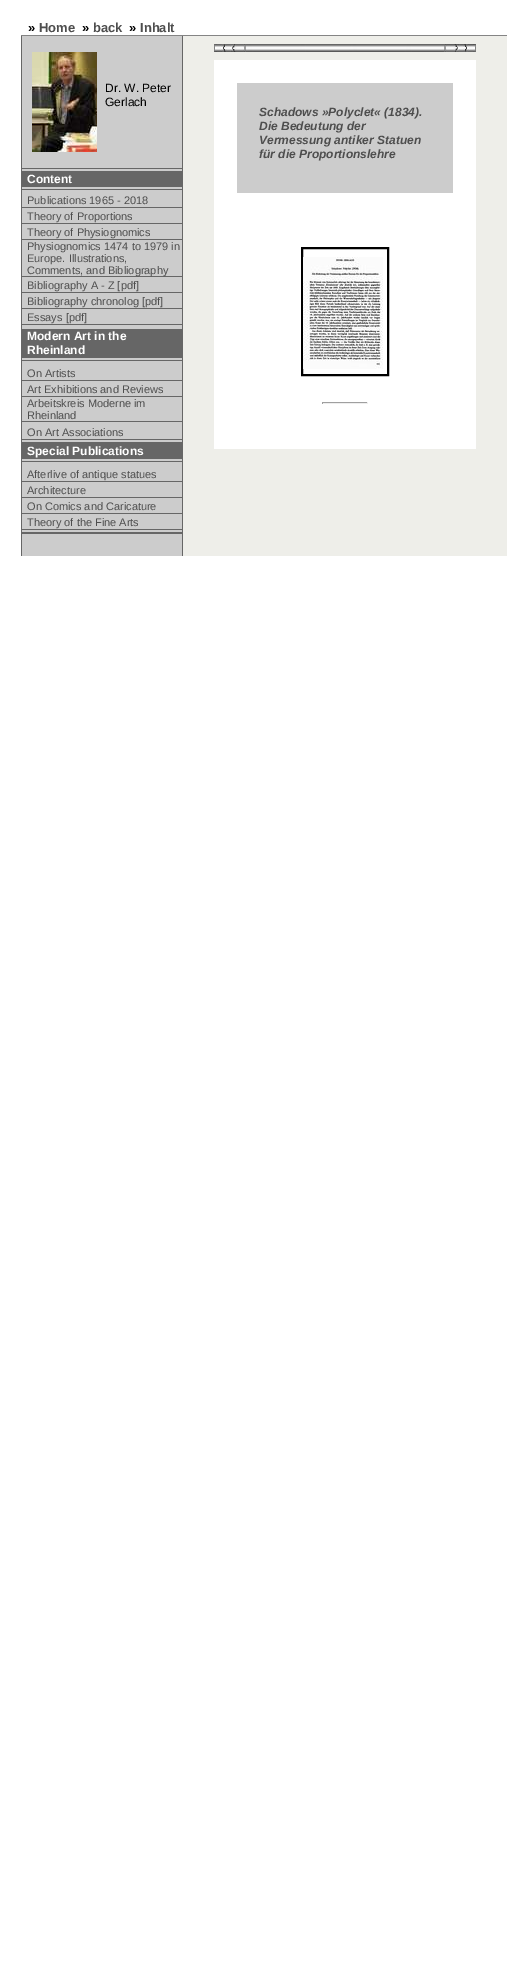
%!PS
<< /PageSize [528 1987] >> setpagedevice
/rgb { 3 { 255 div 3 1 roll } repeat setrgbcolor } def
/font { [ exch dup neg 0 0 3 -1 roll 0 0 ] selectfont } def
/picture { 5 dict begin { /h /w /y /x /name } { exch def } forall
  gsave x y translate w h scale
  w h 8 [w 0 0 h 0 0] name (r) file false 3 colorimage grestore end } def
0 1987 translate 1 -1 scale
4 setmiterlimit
255 255 255 rgb
0 0 528 1987 rectfill
[
  [21 35 486 1 132 132 132]
  [21 36 1 520 102 102 102]
  [22 36 160 520 204 204 204]
] { aload pop rgb rectfill } forall
(img/1.rgb) 32 52 65 100 picture
[
  [22 168 160 1 102 102 102]
  [22 171 160 16 102 102 102]
  [22 189 160 1 102 102 102]
  [22 207 160 1 102 102 102]
  [22 223 160 1 102 102 102]
  [22 239 160 1 102 102 102]
  [22 276 160 1 102 102 102]
  [22 292 160 1 102 102 102]
  [22 308 160 1 102 102 102]
  [22 324 160 1 102 102 102]
  [22 329 160 29 102 102 102]
  [22 360 160 1 102 102 102]
  [22 380 160 1 102 102 102]
  [22 396 160 1 102 102 102]
  [22 421 160 1 102 102 102]
  [22 439 160 1 102 102 102]
  [22 442 160 17 102 102 102]
  [22 461 160 1 102 102 102]
  [22 481 160 1 102 102 102]
  [22 497 160 1 102 102 102]
  [22 513 160 1 102 102 102]
  [22 529 160 1 102 102 102]
  [22 532 160 2 102 102 102]
  [182 36 1 520 102 102 102]
  [183 36 324 520 238 238 233]
] { aload pop rgb rectfill } forall
(img/2.rgb) 214 44 32 8 picture
(img/3.rgb) 246 44 198 8 picture
(img/4.rgb) 444 44 32 8 picture
255 255 255 rgb
214 60 262 389 rectfill
204 204 204 rgb
237 83 216 110 rectfill
0 0 0 rgb
2 setlinewidth
302 248 86 127 rectstroke
(img/5.rgb) 303 257 80 112 picture
[
  [322 402 46 1 159 159 159]
  [367 402 1 2 238 238 238]
  [322 403 46 1 238 238 238]
  [322 402 1 2 159 159 159]
] { aload pop rgb rectfill } forall
/LiberationSans-Bold 13 font
0 0 0 rgb
28 32 moveto (») show
78 78 78 rgb
39 32 moveto (Home) show
0 0 0 rgb
82 32 moveto (») show
78 78 78 rgb
93 32 moveto (back) show
0 0 0 rgb
129 32 moveto (») show
78 78 78 rgb
140 32 moveto (Inhalt) show
/LiberationSans-Regular 12 font
0 0 0 rgb
105 92 moveto (Dr. W. Peter) show
105 106 moveto (Gerlach) show
/LiberationSans-Bold 12 font
255 255 255 rgb
27 183 moveto (Content) show
/LiberationSans-Regular 11 font
78 78 78 rgb
[
  [(Publications 1965 - 2018) 27 204]
  [(Theory of Proportions) 27 220]
  [(Theory of Physiognomics) 27 236]
  [(Physiognomics 1474 to 1979 in) 27 250]
  [(Europe. Illustrations,) 27 262]
  [(Comments, and Bibliography) 27 274]
  [(Bibliography A - Z [pdf]) 27 289]
  [(Bibliography chronolog [pdf]) 27 305]
  [(Essays [pdf]) 27 321]
] { aload pop moveto show } forall
/LiberationSans-Bold 12 font
255 255 255 rgb
27 340 moveto (Modern Art in the) show
27 354 moveto (Rheinland) show
/LiberationSans-Regular 11 font
78 78 78 rgb
[
  [(On Artists) 27 377]
  [(Art Exhibitions and Reviews) 27 393]
  [(Arbeitskreis Moderne im) 27 407]
  [(Rheinland) 27 419]
  [(On Art Associations) 27 436]
] { aload pop moveto show } forall
/LiberationSans-Bold 12 font
255 255 255 rgb
27 455 moveto (Special Publications) show
/LiberationSans-Regular 11 font
78 78 78 rgb
[
  [(Afterlive of antique statues) 27 478]
  [(Architecture) 27 494]
  [(On Comics and Caricature) 27 510]
  [(Theory of the Fine Arts) 27 526]
] { aload pop moveto show } forall
/LiberationSans-BoldItalic 12 font
[
  [(Schadows »Polyclet« \(1834\).) 259 116]
  [(Die Bedeutung der) 259 130]
  [(Vermessung antiker Statuen) 259 144]
  [(für die Proportionslehre) 259 158]
] { aload pop moveto show } forall
showpage
